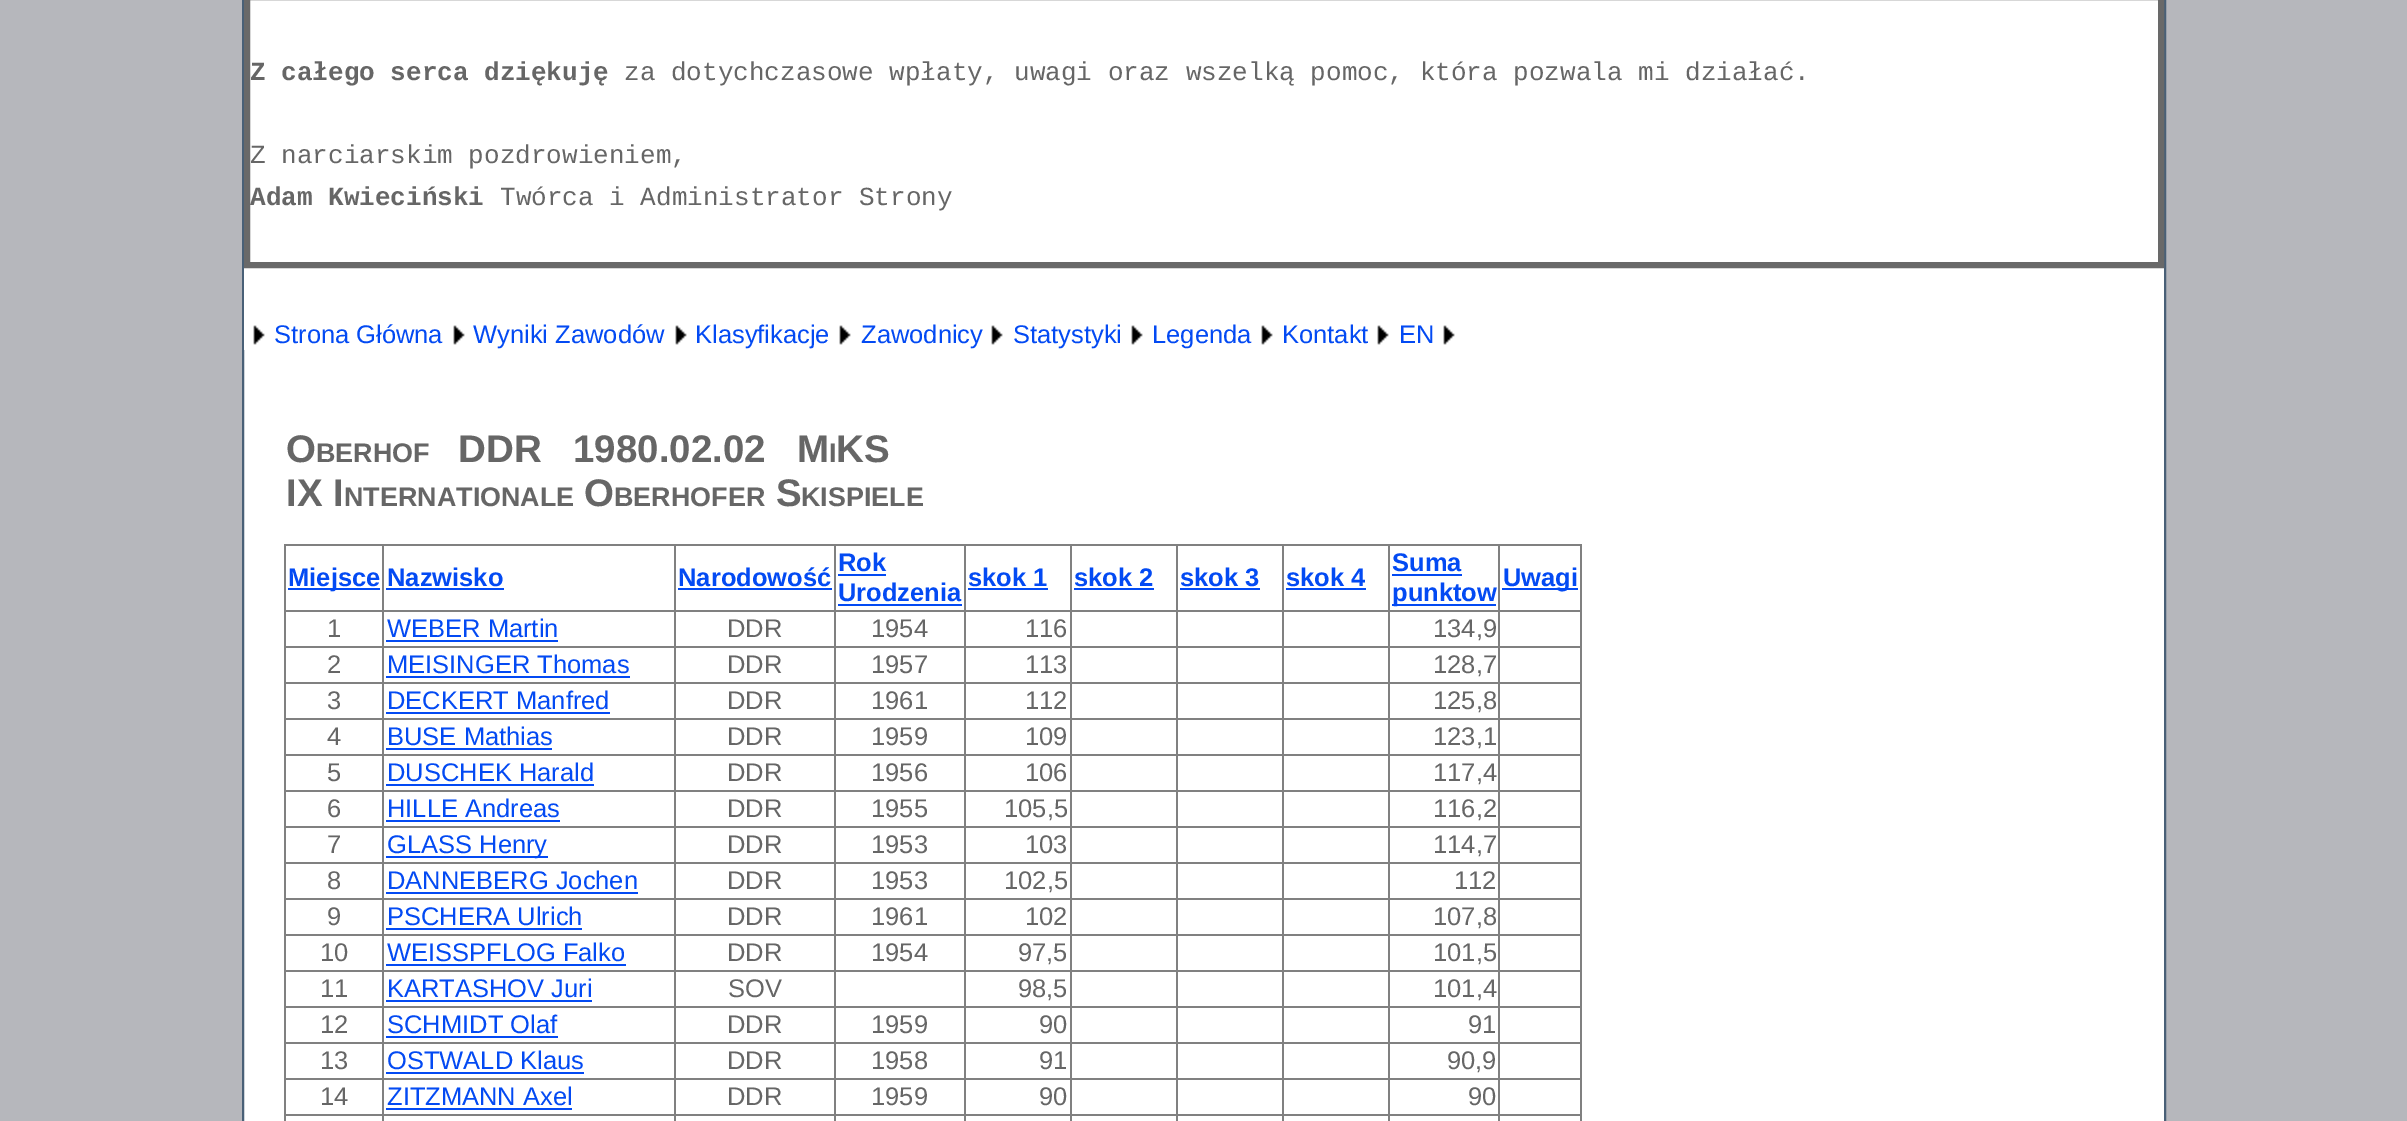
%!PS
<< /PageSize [2407 1121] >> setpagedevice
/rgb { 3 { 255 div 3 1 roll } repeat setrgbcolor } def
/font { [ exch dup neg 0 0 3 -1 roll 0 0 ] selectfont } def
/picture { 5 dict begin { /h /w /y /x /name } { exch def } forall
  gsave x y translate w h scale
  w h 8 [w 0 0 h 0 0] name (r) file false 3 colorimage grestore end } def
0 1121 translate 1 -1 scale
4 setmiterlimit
182 183 188 rgb
0 0 2407 1121 rectfill
255 255 255 rgb
244 350 1920 771 rectfill
73 96 119 rgb
2 setlinewidth
243 -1 1922 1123 rectstroke
255 255 255 rgb
244 0 1920 350 rectfill
105 105 105 rgb
6 setlinewidth
247 -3 1914 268 rectstroke
(img/1.rgb) 253 325 12 20 picture
(img/1.rgb) 453 325 12 20 picture
(img/1.rgb) 675 325 12 20 picture
(img/1.rgb) 839 325 12 20 picture
(img/1.rgb) 991 325 12 20 picture
(img/1.rgb) 1131 325 12 20 picture
(img/1.rgb) 1261 325 12 20 picture
(img/1.rgb) 1377 325 12 20 picture
(img/1.rgb) 1443 325 12 20 picture
[
  [284 544 1298 2 128 128 128]
  [1580 544 2 577 128 128 128]
  [284 544 2 577 128 128 128]
  [288 588 92 2 3 74 243]
  [1498 610 84 2 128 128 128]
  [1498 646 84 2 128 128 128]
  [1498 682 84 2 128 128 128]
  [1498 718 84 2 128 128 128]
  [1498 754 84 2 128 128 128]
  [1498 790 84 2 128 128 128]
  [1498 826 84 2 128 128 128]
  [1498 862 84 2 128 128 128]
  [1498 898 84 2 128 128 128]
  [1498 934 84 2 128 128 128]
  [1498 970 84 2 128 128 128]
  [1498 1006 84 2 128 128 128]
  [1498 1042 84 2 128 128 128]
  [1498 1078 84 2 128 128 128]
  [1498 1114 84 2 128 128 128]
  [1498 1114 2 7 128 128 128]
  [1388 1114 112 2 128 128 128]
  [1498 1078 2 38 128 128 128]
  [1388 1078 112 2 128 128 128]
  [1498 1042 2 38 128 128 128]
  [1388 1042 112 2 128 128 128]
  [1498 1006 2 38 128 128 128]
  [1388 1006 112 2 128 128 128]
  [1498 970 2 38 128 128 128]
  [1388 970 112 2 128 128 128]
  [1498 934 2 38 128 128 128]
  [1388 934 112 2 128 128 128]
  [1498 898 2 38 128 128 128]
  [1388 898 112 2 128 128 128]
  [1498 862 2 38 128 128 128]
  [1388 862 112 2 128 128 128]
  [1498 826 2 38 128 128 128]
  [1388 826 112 2 128 128 128]
  [1498 790 2 38 128 128 128]
  [1388 790 112 2 128 128 128]
  [1498 754 2 38 128 128 128]
  [1388 754 112 2 128 128 128]
  [1498 718 2 38 128 128 128]
  [1388 718 112 2 128 128 128]
  [1498 682 2 38 128 128 128]
  [1388 682 112 2 128 128 128]
  [1498 646 2 38 128 128 128]
  [1388 646 112 2 128 128 128]
  [1498 610 2 38 128 128 128]
  [1388 610 112 2 128 128 128]
  [1388 1114 2 7 128 128 128]
  [1282 1114 108 2 128 128 128]
  [1388 1078 2 38 128 128 128]
  [1282 1078 108 2 128 128 128]
  [1388 1042 2 38 128 128 128]
  [1282 1042 108 2 128 128 128]
  [1388 1006 2 38 128 128 128]
  [1282 1006 108 2 128 128 128]
  [1388 970 2 38 128 128 128]
  [1282 970 108 2 128 128 128]
  [1388 934 2 38 128 128 128]
  [1282 934 108 2 128 128 128]
  [1388 898 2 38 128 128 128]
  [1282 898 108 2 128 128 128]
  [1388 862 2 38 128 128 128]
  [1282 862 108 2 128 128 128]
  [1388 826 2 38 128 128 128]
  [1282 826 108 2 128 128 128]
  [1388 790 2 38 128 128 128]
  [1282 790 108 2 128 128 128]
  [1388 754 2 38 128 128 128]
  [1282 754 108 2 128 128 128]
  [1388 718 2 38 128 128 128]
  [1282 718 108 2 128 128 128]
  [1388 682 2 38 128 128 128]
  [1282 682 108 2 128 128 128]
  [1388 646 2 38 128 128 128]
  [1282 646 108 2 128 128 128]
  [1388 610 2 38 128 128 128]
  [1282 610 108 2 128 128 128]
  [1282 1114 2 7 128 128 128]
  [1176 1114 108 2 128 128 128]
  [1282 1078 2 38 128 128 128]
  [1176 1078 108 2 128 128 128]
  [1282 1042 2 38 128 128 128]
  [1176 1042 108 2 128 128 128]
  [1282 1006 2 38 128 128 128]
  [1176 1006 108 2 128 128 128]
  [1282 970 2 38 128 128 128]
  [1176 970 108 2 128 128 128]
  [1282 934 2 38 128 128 128]
  [1176 934 108 2 128 128 128]
  [1282 898 2 38 128 128 128]
  [1176 898 108 2 128 128 128]
  [1282 862 2 38 128 128 128]
  [1176 862 108 2 128 128 128]
  [1282 826 2 38 128 128 128]
  [1176 826 108 2 128 128 128]
  [1282 790 2 38 128 128 128]
  [1176 790 108 2 128 128 128]
  [1282 754 2 38 128 128 128]
  [1176 754 108 2 128 128 128]
  [1282 718 2 38 128 128 128]
  [1176 718 108 2 128 128 128]
  [1282 682 2 38 128 128 128]
  [1176 682 108 2 128 128 128]
  [1282 646 2 38 128 128 128]
  [1176 646 108 2 128 128 128]
  [1282 610 2 38 128 128 128]
  [1176 610 108 2 128 128 128]
  [1176 1114 2 7 128 128 128]
  [1070 1114 108 2 128 128 128]
  [1176 1078 2 38 128 128 128]
  [1070 1078 108 2 128 128 128]
  [1176 1042 2 38 128 128 128]
  [1070 1042 108 2 128 128 128]
  [1176 1006 2 38 128 128 128]
  [1070 1006 108 2 128 128 128]
  [1176 970 2 38 128 128 128]
  [1070 970 108 2 128 128 128]
  [1176 934 2 38 128 128 128]
  [1070 934 108 2 128 128 128]
  [1176 898 2 38 128 128 128]
  [1070 898 108 2 128 128 128]
  [1176 862 2 38 128 128 128]
  [1070 862 108 2 128 128 128]
  [1176 826 2 38 128 128 128]
  [1070 826 108 2 128 128 128]
  [1176 790 2 38 128 128 128]
  [1070 790 108 2 128 128 128]
  [1176 754 2 38 128 128 128]
  [1070 754 108 2 128 128 128]
  [1176 718 2 38 128 128 128]
  [1070 718 108 2 128 128 128]
  [1176 682 2 38 128 128 128]
  [1070 682 108 2 128 128 128]
  [1176 646 2 38 128 128 128]
  [1070 646 108 2 128 128 128]
  [1176 610 2 38 128 128 128]
  [1070 610 108 2 128 128 128]
  [1070 1114 2 7 128 128 128]
  [964 1114 108 2 128 128 128]
  [1070 1078 2 38 128 128 128]
  [964 1078 108 2 128 128 128]
  [1070 1042 2 38 128 128 128]
  [964 1042 108 2 128 128 128]
  [1070 1006 2 38 128 128 128]
  [964 1006 108 2 128 128 128]
  [1070 970 2 38 128 128 128]
  [964 970 108 2 128 128 128]
  [1070 934 2 38 128 128 128]
  [964 934 108 2 128 128 128]
  [1070 898 2 38 128 128 128]
  [964 898 108 2 128 128 128]
  [1070 862 2 38 128 128 128]
  [964 862 108 2 128 128 128]
  [1070 826 2 38 128 128 128]
  [964 826 108 2 128 128 128]
  [1070 790 2 38 128 128 128]
  [964 790 108 2 128 128 128]
  [1070 754 2 38 128 128 128]
  [964 754 108 2 128 128 128]
  [1070 718 2 38 128 128 128]
  [964 718 108 2 128 128 128]
  [1070 682 2 38 128 128 128]
  [964 682 108 2 128 128 128]
  [1070 646 2 38 128 128 128]
  [964 646 108 2 128 128 128]
  [1070 610 2 38 128 128 128]
  [964 610 108 2 128 128 128]
  [964 1114 2 7 128 128 128]
  [834 1114 132 2 128 128 128]
  [964 1078 2 38 128 128 128]
  [834 1078 132 2 128 128 128]
  [964 1042 2 38 128 128 128]
  [834 1042 132 2 128 128 128]
  [964 1006 2 38 128 128 128]
  [834 1006 132 2 128 128 128]
  [964 970 2 38 128 128 128]
  [834 970 132 2 128 128 128]
  [964 934 2 38 128 128 128]
  [834 934 132 2 128 128 128]
  [964 898 2 38 128 128 128]
  [834 898 132 2 128 128 128]
  [964 862 2 38 128 128 128]
  [834 862 132 2 128 128 128]
  [964 826 2 38 128 128 128]
  [834 826 132 2 128 128 128]
  [964 790 2 38 128 128 128]
  [834 790 132 2 128 128 128]
  [964 754 2 38 128 128 128]
  [834 754 132 2 128 128 128]
  [964 718 2 38 128 128 128]
  [834 718 132 2 128 128 128]
  [964 682 2 38 128 128 128]
  [834 682 132 2 128 128 128]
  [964 646 2 38 128 128 128]
  [834 646 132 2 128 128 128]
  [964 610 2 38 128 128 128]
  [834 610 132 2 128 128 128]
  [834 1114 2 7 128 128 128]
  [674 1114 162 2 128 128 128]
  [834 1078 2 38 128 128 128]
  [674 1078 162 2 128 128 128]
  [834 1042 2 38 128 128 128]
  [674 1042 162 2 128 128 128]
  [834 1006 2 38 128 128 128]
  [674 1006 162 2 128 128 128]
  [834 970 2 38 128 128 128]
  [674 970 162 2 128 128 128]
  [834 934 2 38 128 128 128]
  [674 934 162 2 128 128 128]
  [834 898 2 38 128 128 128]
  [674 898 162 2 128 128 128]
  [834 862 2 38 128 128 128]
  [674 862 162 2 128 128 128]
  [834 826 2 38 128 128 128]
  [674 826 162 2 128 128 128]
  [834 790 2 38 128 128 128]
  [674 790 162 2 128 128 128]
  [834 754 2 38 128 128 128]
  [674 754 162 2 128 128 128]
  [834 718 2 38 128 128 128]
  [674 718 162 2 128 128 128]
  [834 682 2 38 128 128 128]
  [674 682 162 2 128 128 128]
  [834 646 2 38 128 128 128]
  [674 646 162 2 128 128 128]
  [834 610 2 38 128 128 128]
  [674 610 162 2 128 128 128]
  [674 1114 2 7 128 128 128]
  [382 1114 294 2 128 128 128]
  [674 1078 2 38 128 128 128]
  [382 1078 294 2 128 128 128]
  [674 1042 2 38 128 128 128]
  [382 1042 294 2 128 128 128]
  [674 1006 2 38 128 128 128]
  [382 1006 294 2 128 128 128]
  [674 970 2 38 128 128 128]
  [382 970 294 2 128 128 128]
  [674 934 2 38 128 128 128]
  [382 934 294 2 128 128 128]
  [674 898 2 38 128 128 128]
  [382 898 294 2 128 128 128]
  [674 862 2 38 128 128 128]
  [382 862 294 2 128 128 128]
  [674 826 2 38 128 128 128]
  [382 826 294 2 128 128 128]
  [674 790 2 38 128 128 128]
  [382 790 294 2 128 128 128]
  [674 754 2 38 128 128 128]
  [382 754 294 2 128 128 128]
  [674 718 2 38 128 128 128]
  [382 718 294 2 128 128 128]
  [674 682 2 38 128 128 128]
  [382 682 294 2 128 128 128]
  [674 646 2 38 128 128 128]
  [382 646 294 2 128 128 128]
  [674 610 2 38 128 128 128]
  [382 610 294 2 128 128 128]
  [382 1114 2 7 128 128 128]
  [284 1114 100 2 128 128 128]
  [382 1078 2 38 128 128 128]
  [284 1078 100 2 128 128 128]
  [382 1042 2 38 128 128 128]
  [284 1042 100 2 128 128 128]
  [382 1006 2 38 128 128 128]
  [284 1006 100 2 128 128 128]
  [382 970 2 38 128 128 128]
  [284 970 100 2 128 128 128]
  [382 934 2 38 128 128 128]
  [284 934 100 2 128 128 128]
  [382 898 2 38 128 128 128]
  [284 898 100 2 128 128 128]
  [382 862 2 38 128 128 128]
  [284 862 100 2 128 128 128]
  [382 826 2 38 128 128 128]
  [284 826 100 2 128 128 128]
  [382 790 2 38 128 128 128]
  [284 790 100 2 128 128 128]
  [382 754 2 38 128 128 128]
  [284 754 100 2 128 128 128]
  [382 718 2 38 128 128 128]
  [284 718 100 2 128 128 128]
  [382 682 2 38 128 128 128]
  [284 682 100 2 128 128 128]
  [382 646 2 38 128 128 128]
  [284 646 100 2 128 128 128]
  [382 610 2 38 128 128 128]
  [284 610 100 2 128 128 128]
  [382 544 2 68 128 128 128]
  [386 588 118 2 3 74 243]
  [674 544 2 68 128 128 128]
  [678 588 154 2 3 74 243]
  [834 544 2 68 128 128 128]
  [838 574 48 2 3 74 243]
  [838 604 124 2 3 74 243]
  [964 544 2 68 128 128 128]
  [968 588 80 2 3 74 243]
  [1070 544 2 68 128 128 128]
  [1074 588 80 2 3 74 243]
  [1176 544 2 68 128 128 128]
  [1180 588 80 2 3 74 243]
  [1282 544 2 68 128 128 128]
  [1286 588 80 2 3 74 243]
  [1388 544 2 68 128 128 128]
  [1392 574 70 2 3 74 243]
  [1392 604 104 2 3 74 243]
  [1498 544 2 68 128 128 128]
  [1502 588 76 2 3 74 243]
  [386 640 172 2 3 74 243]
  [386 676 244 2 3 74 243]
  [386 712 224 2 3 74 243]
  [386 748 166 2 3 74 243]
  [386 784 208 2 3 74 243]
  [386 820 174 2 3 74 243]
  [386 856 162 2 3 74 243]
  [386 892 252 2 3 74 243]
  [386 928 196 2 3 74 243]
  [386 964 240 2 3 74 243]
  [386 1000 206 2 3 74 243]
  [386 1036 172 2 3 74 243]
  [386 1072 198 2 3 74 243]
  [386 1108 186 2 3 74 243]
] { aload pop rgb rectfill } forall
/LiberationMono-Bold 26 font
102 102 102 rgb
250 80 moveto (Z całego serca dziękuję) show
/LiberationMono-Regular 26 font
624 80 moveto (za dotychczasowe wpłaty, uwagi oraz wszelką pomoc, która pozwala mi działać.) show
250 163 moveto (Z narciarskim pozdrowieniem,) show
/LiberationMono-Bold 26 font
250 205 moveto (Adam Kwieciński) show
/LiberationMono-Regular 26 font
500 205 moveto (Twórca i Administrator Strony) show
/LiberationSans-Regular 25.5 font
3 74 243 rgb
[
  [(Strona Główna) 274 343]
  [(Wyniki Zawodów) 473 343]
  [(Klasyfikacje) 695 343]
  [(Zawodnicy) 861 343]
  [(Statystyki) 1013 343]
  [(Legenda) 1152 343]
  [(Kontakt) 1282 343]
  [(EN) 1399 343]
] { aload pop moveto show } forall
/LiberationSans-Bold 38.5 font
102 102 102 rgb
286 462 moveto (O) show
/LiberationSans-Bold 26.9 font
316 462 moveto (BERHOF) show
/LiberationSans-Bold 38.5 font
[
  [(DDR) 458 462]
  [(1980.02.02) 573 462]
  [(M) 797 462]
] { aload pop moveto show } forall
/LiberationSans-Bold 26.9 font
829 462 moveto (I) show
/LiberationSans-Bold 38.5 font
836 462 moveto (KS) show
286 506 moveto (IX I) show
/LiberationSans-Bold 26.9 font
344 506 moveto (NTERNATIONALE) show
/LiberationSans-Bold 38.5 font
584 506 moveto (O) show
/LiberationSans-Bold 26.9 font
614 506 moveto (BERHOFER) show
/LiberationSans-Bold 38.5 font
776 506 moveto (S) show
/LiberationSans-Bold 26.9 font
801 506 moveto (KISPIELE) show
/LiberationSans-Bold 25.5 font
3 74 243 rgb
[
  [(Miejsce) 288 586]
  [(Nazwisko) 387 586]
  [(Narodowość) 678 586]
  [(Rok) 838 571]
  [(Urodzenia) 838 601]
  [(skok 1) 968 586]
  [(skok 2) 1074 586]
  [(skok 3) 1180 586]
  [(skok 4) 1286 586]
  [(Suma) 1392 571]
  [(punktow) 1392 601]
  [(Uwagi) 1503 586]
] { aload pop moveto show } forall
/LiberationSans-Regular 25.5 font
102 102 102 rgb
327 637 moveto (1) show
3 74 243 rgb
387 637 moveto (WEBER Martin) show
102 102 102 rgb
[
  [(DDR) 727 637]
  [(1954) 871 637]
  [(116) 1025 637]
  [(134,9) 1433 637]
  [(2) 327 673]
] { aload pop moveto show } forall
3 74 243 rgb
387 673 moveto (MEISINGER Thomas) show
102 102 102 rgb
[
  [(DDR) 727 673]
  [(1957) 871 673]
  [(113) 1025 673]
  [(128,7) 1433 673]
  [(3) 327 709]
] { aload pop moveto show } forall
3 74 243 rgb
387 709 moveto (DECKERT Manfred) show
102 102 102 rgb
[
  [(DDR) 727 709]
  [(1961) 871 709]
  [(112) 1025 709]
  [(125,8) 1433 709]
  [(4) 327 745]
] { aload pop moveto show } forall
3 74 243 rgb
387 745 moveto (BUSE Mathias) show
102 102 102 rgb
[
  [(DDR) 727 745]
  [(1959) 871 745]
  [(109) 1025 745]
  [(123,1) 1433 745]
  [(5) 327 781]
] { aload pop moveto show } forall
3 74 243 rgb
387 781 moveto (DUSCHEK Harald) show
102 102 102 rgb
[
  [(DDR) 727 781]
  [(1956) 871 781]
  [(106) 1025 781]
  [(117,4) 1433 781]
  [(6) 327 817]
] { aload pop moveto show } forall
3 74 243 rgb
387 817 moveto (HILLE Andreas) show
102 102 102 rgb
[
  [(DDR) 727 817]
  [(1955) 871 817]
  [(105,5) 1004 817]
  [(116,2) 1433 817]
  [(7) 327 853]
] { aload pop moveto show } forall
3 74 243 rgb
387 853 moveto (GLASS Henry) show
102 102 102 rgb
[
  [(DDR) 727 853]
  [(1953) 871 853]
  [(103) 1025 853]
  [(114,7) 1433 853]
  [(8) 327 889]
] { aload pop moveto show } forall
3 74 243 rgb
387 889 moveto (DANNEBERG Jochen) show
102 102 102 rgb
[
  [(DDR) 727 889]
  [(1953) 871 889]
  [(102,5) 1004 889]
  [(112) 1454 889]
  [(9) 327 925]
] { aload pop moveto show } forall
3 74 243 rgb
387 925 moveto (PSCHERA Ulrich) show
102 102 102 rgb
[
  [(DDR) 727 925]
  [(1961) 871 925]
  [(102) 1025 925]
  [(107,8) 1433 925]
  [(10) 320 961]
] { aload pop moveto show } forall
3 74 243 rgb
387 961 moveto (WEISSPFLOG Falko) show
102 102 102 rgb
[
  [(DDR) 727 961]
  [(1954) 871 961]
  [(97,5) 1018 961]
  [(101,5) 1433 961]
  [(11) 320 997]
] { aload pop moveto show } forall
3 74 243 rgb
387 997 moveto (KARTASHOV Juri) show
102 102 102 rgb
[
  [(SOV) 728 997]
  [(98,5) 1018 997]
  [(101,4) 1433 997]
  [(12) 320 1033]
] { aload pop moveto show } forall
3 74 243 rgb
387 1033 moveto (SCHMIDT Olaf) show
102 102 102 rgb
[
  [(DDR) 727 1033]
  [(1959) 871 1033]
  [(90) 1039 1033]
  [(91) 1468 1033]
  [(13) 320 1069]
] { aload pop moveto show } forall
3 74 243 rgb
387 1069 moveto (OSTWALD Klaus) show
102 102 102 rgb
[
  [(DDR) 727 1069]
  [(1958) 871 1069]
  [(91) 1039 1069]
  [(90,9) 1447 1069]
  [(14) 320 1105]
] { aload pop moveto show } forall
3 74 243 rgb
387 1105 moveto (ZITZMANN Axel) show
102 102 102 rgb
[
  [(DDR) 727 1105]
  [(1959) 871 1105]
  [(90) 1039 1105]
  [(90) 1468 1105]
] { aload pop moveto show } forall
showpage
